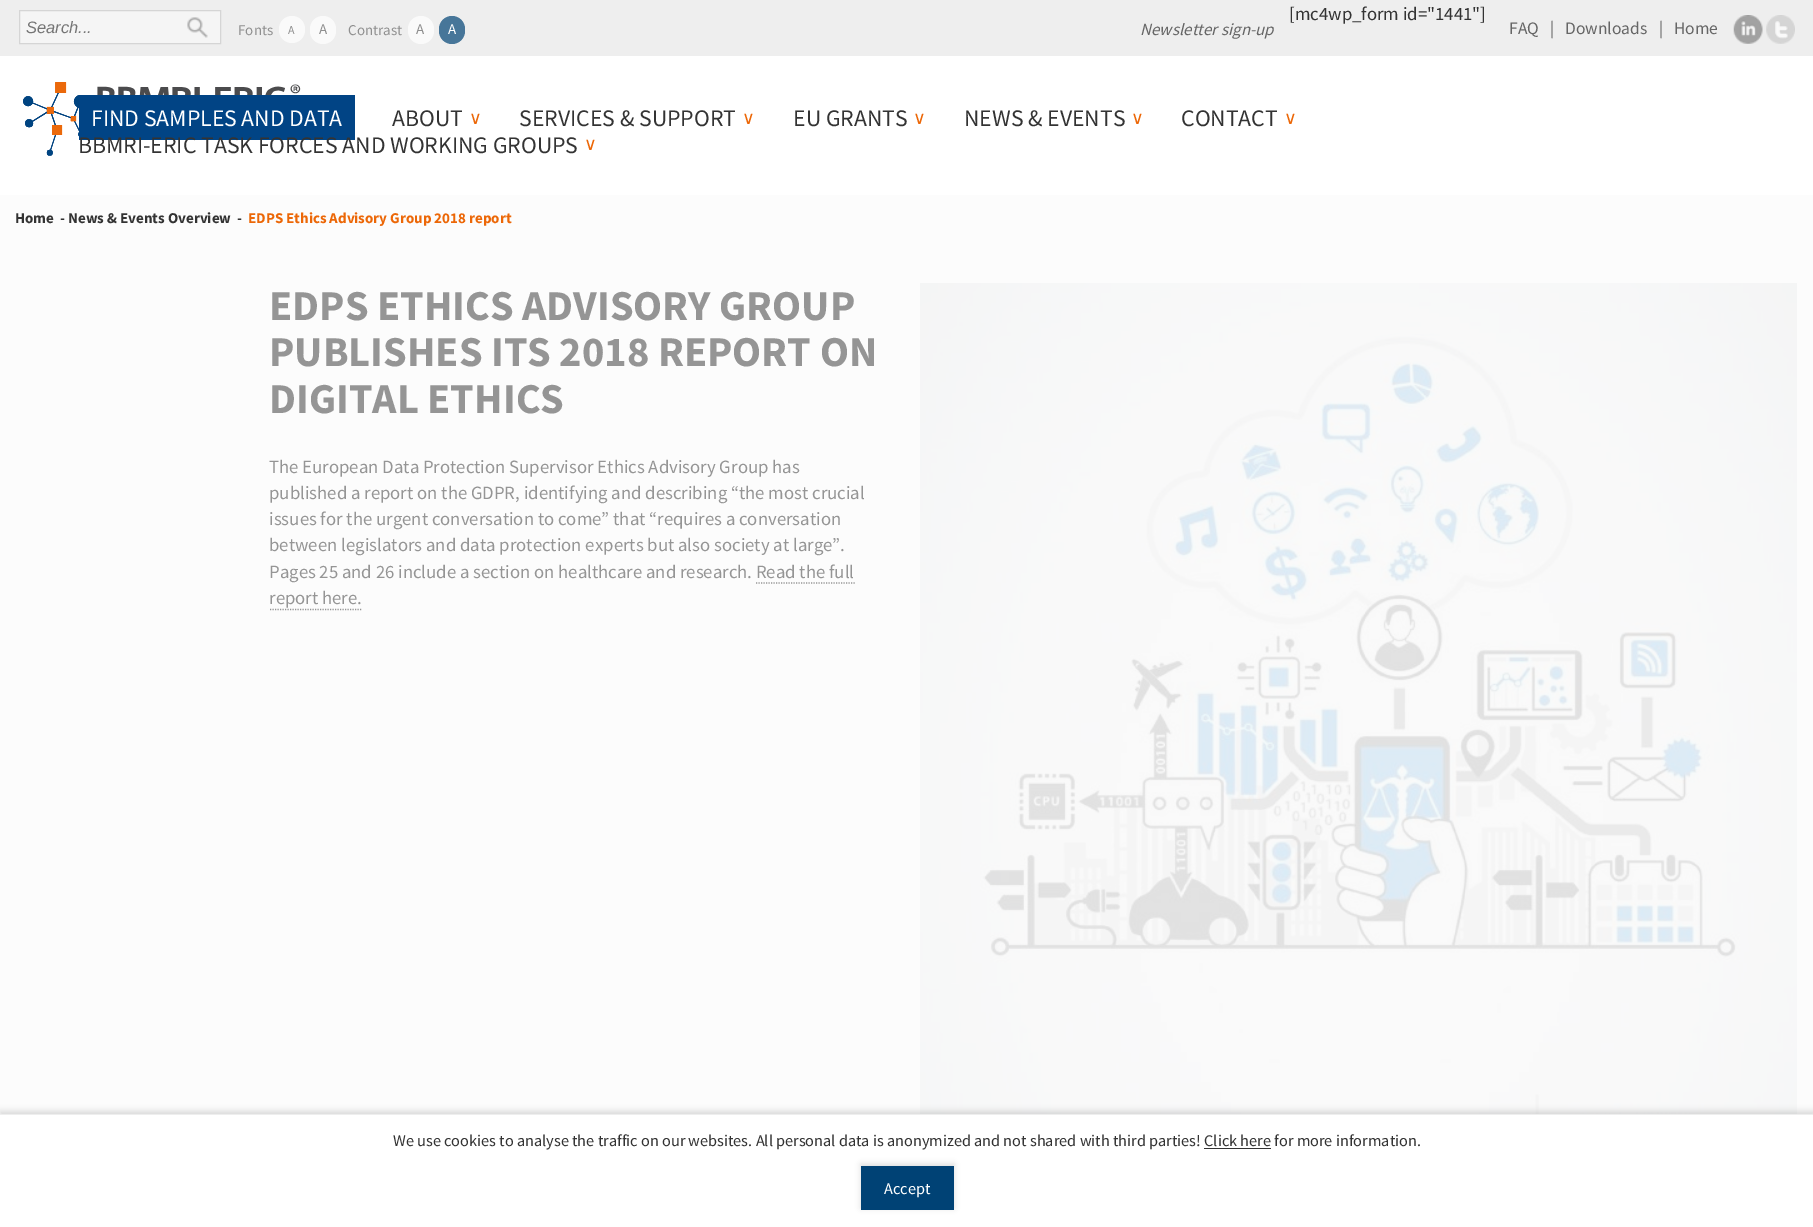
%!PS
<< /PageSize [1813 1227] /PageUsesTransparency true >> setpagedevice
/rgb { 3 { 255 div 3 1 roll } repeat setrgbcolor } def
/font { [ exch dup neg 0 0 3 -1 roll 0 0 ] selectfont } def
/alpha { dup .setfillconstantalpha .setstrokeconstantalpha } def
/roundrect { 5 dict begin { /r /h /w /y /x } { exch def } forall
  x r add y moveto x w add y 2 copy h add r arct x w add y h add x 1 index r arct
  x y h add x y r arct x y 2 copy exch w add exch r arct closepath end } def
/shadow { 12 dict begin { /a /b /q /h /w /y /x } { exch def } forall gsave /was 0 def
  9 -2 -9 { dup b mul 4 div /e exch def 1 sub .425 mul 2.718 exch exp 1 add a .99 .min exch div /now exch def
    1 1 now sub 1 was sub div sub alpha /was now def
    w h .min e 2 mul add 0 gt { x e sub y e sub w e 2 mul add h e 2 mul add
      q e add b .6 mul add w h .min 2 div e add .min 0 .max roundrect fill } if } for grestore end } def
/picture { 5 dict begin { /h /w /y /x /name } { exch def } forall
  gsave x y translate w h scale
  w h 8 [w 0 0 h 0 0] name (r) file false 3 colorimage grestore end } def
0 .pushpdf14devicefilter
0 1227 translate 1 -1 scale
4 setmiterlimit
255 255 255 rgb
0 0 1813 1227 rectfill
238 238 238 rgb
0 0 1813 56 rectfill
245 245 245 rgb
19.5 10.5 moveto 220.5 10.5 lineto 220.5 43.5 lineto 19.5 43.5 lineto closepath gsave fill grestore
213 213 213 rgb
stroke
(img/1.rgb) 187 17 21 21 picture
250 250 250 rgb
279 16 26 27 13 roundrect fill
310 16 26 28 13 roundrect fill
408 16 26 28 13 roundrect fill
71 118 153 rgb
439 16 26 28 13 roundrect fill
(img/2.rgb) 1733 15 30 29 picture
(img/3.rgb) 1766 15 29 29 picture
(img/4.rgb) 23 82 278 74 picture
1 68 133 rgb
79 95 276 45 rectfill
252 252 252 rgb
0 195 1813 919 rectfill
149 149 149 rgb
1.2 setlinewidth
[1.25 1.25] 0 setdash
756 583 moveto 855 583 lineto stroke
270 609.5 moveto 362.5 609.5 lineto stroke
(img/5.rgb) 920 283 877 831 picture
50 50 50 rgb
0 1111 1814 114 0 3 0.17 shadow
[
  [0 1115 1813 112 255 255 255]
  [0 1114 1813 1 238 238 238]
  [1204 1148 67 1 51 51 51]
] { aload pop rgb rectfill } forall
50 50 50 rgb
861 1164 93 44 0 3 0.17 shadow
0 66 117 rgb
861 1166 93 44 rectfill
/LiberationSans-Italic 16.5 font
117 117 117 rgb
26 33 moveto (Search...) show
/SourceSansPro-Regular 15 font
143 143 143 rgb
238 35 moveto (Fonts) show
/SourceSansPro-Regular 12 font
288 34 moveto (A) show
/SourceSansPro-Regular 15 font
[
  [(A) 319 34]
  [(Contrast) 348 35]
  [(A) 416 34]
] { aload pop moveto show } forall
255 255 255 rgb
448 34 moveto (A) show
/SourceSansPro-Regular 18.75 font
51 51 51 rgb
1289 20 moveto ([mc4wp_form id="1441"]) show
/SourceSansPro-Italic 17 font
102 102 102 rgb
1140 35 moveto (Newsletter sign-up) show
/SourceSansPro-Regular 17.5 font
[
  [(FAQ) 1509 34]
  [(|) 1550 34]
  [(Downloads) 1565 34]
  [(|) 1659 34]
  [(Home) 1674 34]
] { aload pop moveto show } forall
/SourceSansPro-Regular 23.75 font
255 255 255 rgb
91 126 moveto (FIND SAMPLES AND DATA) show
51 51 51 rgb
392 126 moveto (ABOUT) show
/DejaVuSans-Regular 17.5 font
236 103 7 rgb
469 124 moveto (∨) show
/SourceSansPro-Regular 23.75 font
51 51 51 rgb
519 126 moveto (SERVICES & SUPPORT) show
/DejaVuSans-Regular 17.5 font
236 103 7 rgb
742 124 moveto (∨) show
/SourceSansPro-Regular 23.75 font
51 51 51 rgb
793 126 moveto (EU GRANTS) show
/DejaVuSans-Regular 17.5 font
236 103 7 rgb
913 124 moveto (∨) show
/SourceSansPro-Regular 23.75 font
51 51 51 rgb
964 126 moveto (NEWS & EVENTS) show
/DejaVuSans-Regular 17.5 font
236 103 7 rgb
1131 124 moveto (∨) show
/SourceSansPro-Regular 23.75 font
51 51 51 rgb
1181 126 moveto (CONTACT) show
/DejaVuSans-Regular 17.5 font
236 103 7 rgb
1284 124 moveto (∨) show
/SourceSansPro-Regular 23.75 font
51 51 51 rgb
78 153 moveto (BBMRI-ERIC TASK FORCES AND WORKING GROUPS) show
/DejaVuSans-Regular 17.5 font
236 103 7 rgb
584 150 moveto (∨) show
/SourceSansPro-Bold 15 font
51 51 51 rgb
15 223 moveto (Home) show
60 223 moveto (- News & Events Overview  -) show
236 103 7 rgb
248 223 moveto (EDPS Ethics Advisory Group 2018 report) show
/SourceSansPro-Bold 42.5 font
149 149 149 rgb
[
  [(EDPS ETHICS ADVISORY GROUP) 269 320]
  [(PUBLISHES ITS 2018 REPORT ON) 269 366]
  [(DIGITAL ETHICS) 269 413]
] { aload pop moveto show } forall
/SourceSansPro-Regular 18.75 font
[
  [(The European Data Protection Supervisor Ethics Advisory Group has) 269 473]
  [(published a report on the GDPR, identifying and describing “the most crucial) 269 499]
  [(issues for the urgent conversation to come” that “requires a conversation) 269 525]
  [(between legislators and data protection experts but also society at large”.) 269 551]
  [(Pages 25 and 26 include a section on healthcare and research. Read the full) 269 578]
  [(report here.) 269 604]
] { aload pop moveto show } forall
/SourceSansPro-Regular 16.25 font
51 51 51 rgb
393 1146 moveto (We use cookies to analyse the traffic on our websites. All personal data is anonymized and not shared with third parties! Click here for more information.) show
255 255 255 rgb
884 1194 moveto (Accept) show
.poppdf14devicefilter showpage
